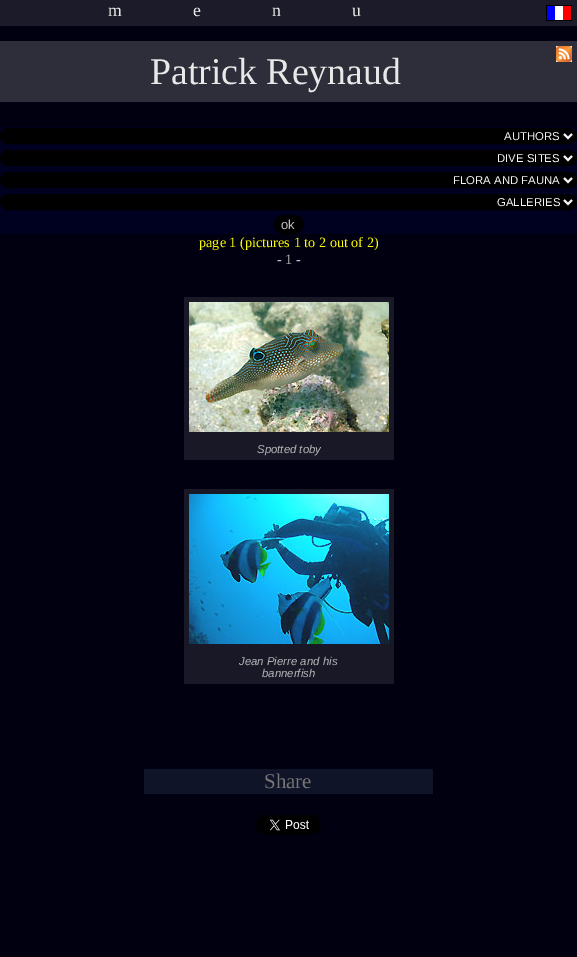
%!PS
<< /PageSize [577 957] >> setpagedevice
/rgb { 3 { 255 div 3 1 roll } repeat setrgbcolor } def
/font { [ exch dup neg 0 0 3 -1 roll 0 0 ] selectfont } def
/roundrect { 5 dict begin { /r /h /w /y /x } { exch def } forall
  x r add y moveto x w add y 2 copy h add r arct x w add y h add x 1 index r arct
  x y h add x y r arct x y 2 copy exch w add exch r arct closepath end } def
/picture { 5 dict begin { /h /w /y /x /name } { exch def } forall
  gsave x y translate w h scale
  w h 8 [w 0 0 h 0 0] name (r) file false 3 colorimage grestore end } def
0 957 translate 1 -1 scale
4 setmiterlimit
0 0 16 rgb
0 0 577 957 rectfill
27 27 41 rgb
0 0 577 26 rectfill
(img/1.rgb) 546 5 26 16 picture
46 46 59 rgb
0 41 577 61 rectfill
(img/2.rgb) 556 46 16 16 picture
0 0 33 rgb
0 127 577 107 rectfill
0 0 0 rgb
0.5 128.5 576 15 7.5 roundrect gsave fill grestore
stroke
244 244 244 rgb
2 setlinewidth
564 134 moveto 568 138 lineto 572 134 lineto stroke
0 0 0 rgb
0.5 150.5 576 15 7.5 roundrect gsave fill grestore
1 setlinewidth
stroke
244 244 244 rgb
2 setlinewidth
564 156 moveto 568 160 lineto 572 156 lineto stroke
0 0 0 rgb
0.5 172.5 576 15 7.5 roundrect gsave fill grestore
1 setlinewidth
stroke
244 244 244 rgb
2 setlinewidth
564 178 moveto 568 182 lineto 572 178 lineto stroke
0 0 0 rgb
0.5 194.5 576 15 7.5 roundrect gsave fill grestore
1 setlinewidth
stroke
244 244 244 rgb
2 setlinewidth
564 200 moveto 568 204 lineto 572 200 lineto stroke
0 0 0 rgb
274.5 215.5 29 18 9 roundrect gsave fill grestore
1 setlinewidth
stroke
24 24 38 rgb
184 297 210 163 rectfill
(img/3.rgb) 189 302 200 130 picture
184 489 210 195 rectfill
(img/4.rgb) 189 494 200 150 picture
15 20 40 rgb
144 769 289 25 rectfill
(img/5.rgb) 256 815 65 20 picture
/LiberationSerif-Regular 17.75 font
232 232 232 rgb
108 16 moveto 71 0 (menu) ashow
/LiberationSerif-Regular 37.75 font
150 84 moveto (Patrick Reynaud) show
/LiberationSans-Regular 11.4 font
244 244 244 rgb
[
  [(AUTHORS) 504 140]
  [(DIVE SITES) 497 162]
  [(FLORA AND FAUNA) 453 184]
  [(GALLERIES) 497 206]
] { aload pop moveto show } forall
/LiberationSans-Regular 13 font
192 192 192 rgb
281 229 moveto (ok) show
/LiberationSerif-Regular 14.25 font
255 255 0 rgb
199 247 moveto (page 1 \(pictures 1 to 2 out of 2\)) show
192 192 192 rgb
277 264 moveto (- 1 -) show
/LiberationSans-Italic 11.4 font
181 181 184 rgb
[
  [(Spotted toby) 257 453]
  [(Jean Pierre and his) 239 665]
  [(bannerfish) 262 677]
] { aload pop moveto show } forall
/LiberationSerif-Regular 21 font
118 118 118 rgb
264 788 moveto (Share) show
showpage
